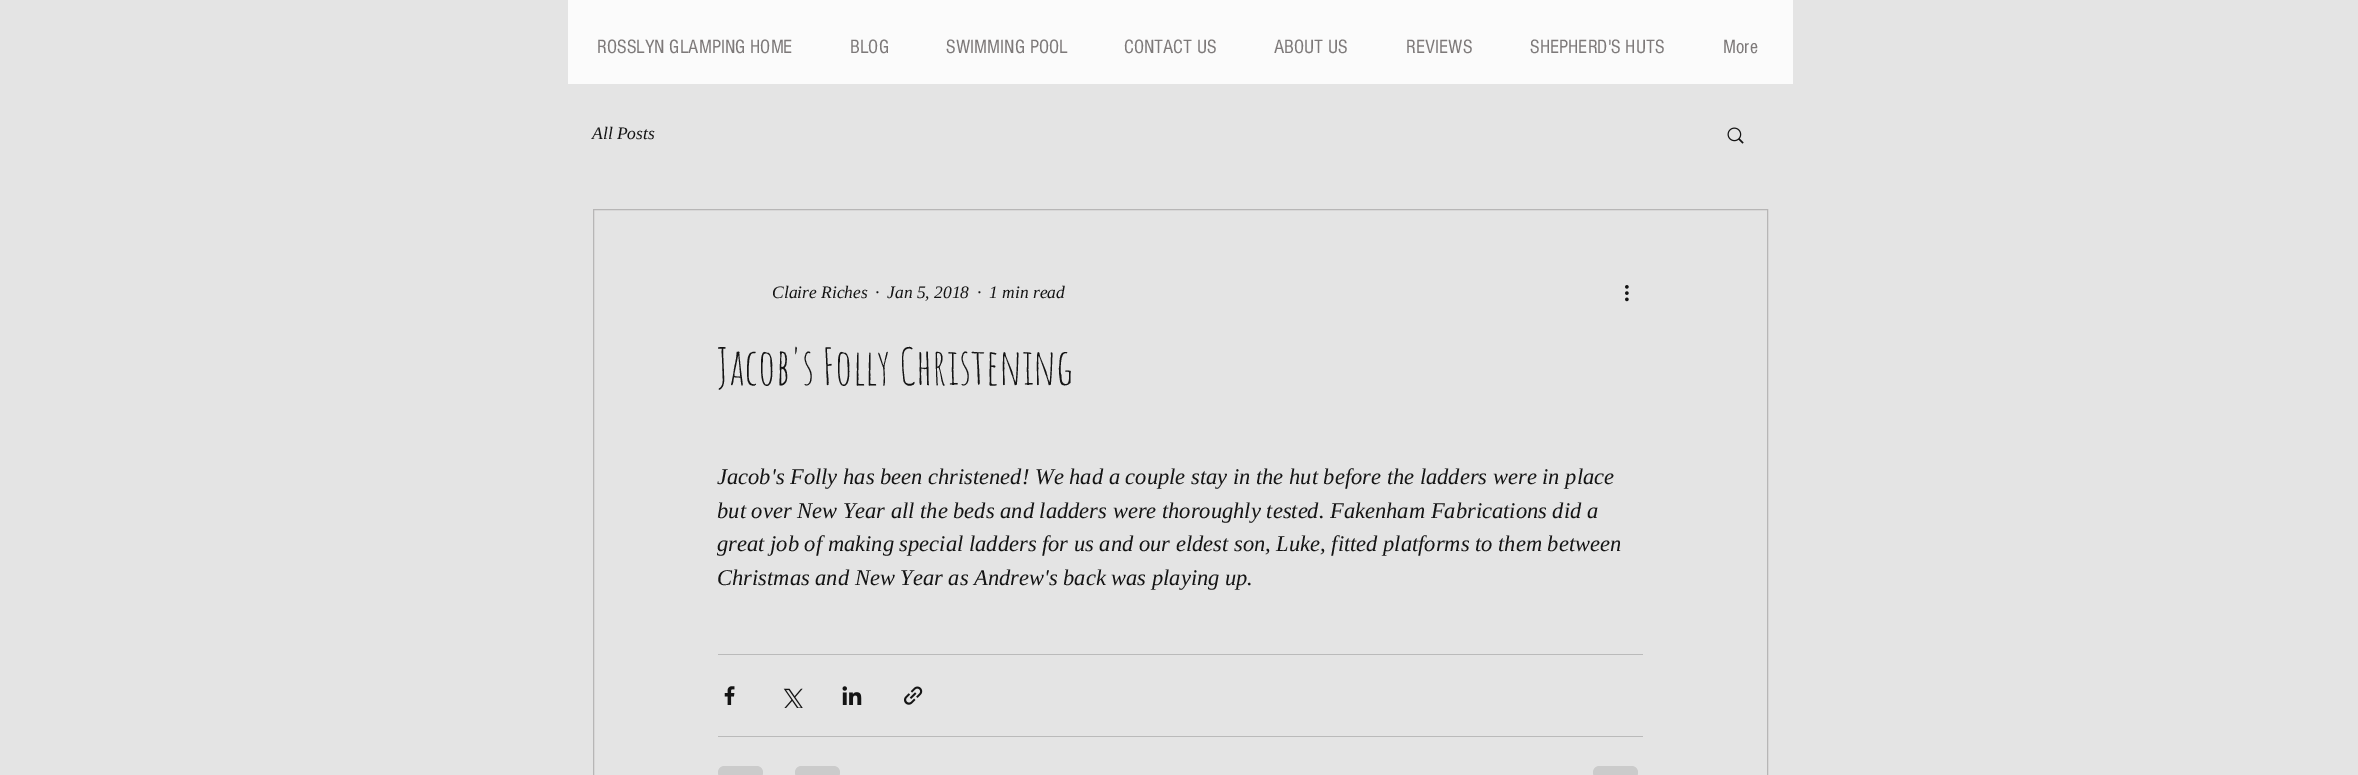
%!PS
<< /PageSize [2358 775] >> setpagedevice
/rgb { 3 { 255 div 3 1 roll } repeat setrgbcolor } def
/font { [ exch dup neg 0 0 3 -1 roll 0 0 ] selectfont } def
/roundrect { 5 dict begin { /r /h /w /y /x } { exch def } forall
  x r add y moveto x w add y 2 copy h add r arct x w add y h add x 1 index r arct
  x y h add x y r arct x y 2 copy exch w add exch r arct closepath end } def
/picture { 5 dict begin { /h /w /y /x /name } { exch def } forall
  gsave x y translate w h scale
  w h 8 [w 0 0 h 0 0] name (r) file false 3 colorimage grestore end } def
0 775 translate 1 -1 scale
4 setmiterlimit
228 228 228 rgb
0 0 2358 775 rectfill
251 251 251 rgb
568 0 1225 84 rectfill
(img/1.rgb) 1727 127 17 17 picture
183 182 182 rgb
593.5 209.5 1174 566 rectstroke
(img/2.rgb) 1625 285 4 17 picture
186 186 186 rgb
718 654 925 1 rectfill
(img/3.rgb) 724 686 11 19 picture
(img/4.rgb) 783 688 20 20 picture
(img/5.rgb) 842 686 20 19 picture
(img/6.rgb) 904 686 19 19 picture
718 736 925 1 rectfill
203 203 203 rgb
718 766 45 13 6.5 roundrect fill
795 766 45 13 6.5 roundrect fill
1593 766 45 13 6.5 roundrect fill
/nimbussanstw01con-Regular 20 font
125 121 121 rgb
[
  [(ROSSLYN GLAMPING HOME) 597 53]
  [(BLOG) 850 53]
  [(SWIMMING POOL) 946 53]
  [(CONTACT US) 1124 53]
  [(ABOUT US) 1274 53]
  [(REVIEWS) 1406 53]
  [(SHEPHERD'S HUTS) 1530 53]
  [(More) 1723 53]
] { aload pop moveto show } forall
/LiberationSerif-Italic 17.5 font
20 20 20 rgb
[
  [(All Posts) 592 139]
  [(Claire Riches) 772 298]
  [(·) 875 298]
  [(Jan 5, 2018) 887 298]
  [(·) 977 298]
  [(1 min read) 989 298]
] { aload pop moveto show } forall
/AmaticSC-Regular 50 font
717 385 moveto (Jacob's Folly Christening) show
/LiberationSerif-Italic 22.5 font
[
  [(Jacob's Folly has been christened! We had a couple stay in the hut before the ladders were in place) 717 484]
  [(but over New Year all the beds and ladders were thoroughly tested. Fakenham Fabrications did a) 717 518]
  [(great job of making special ladders for us and our eldest son, Luke, fitted platforms to them between) 717 551]
  [(Christmas and New Year as Andrew's back was playing up.) 717 585]
] { aload pop moveto show } forall
showpage
